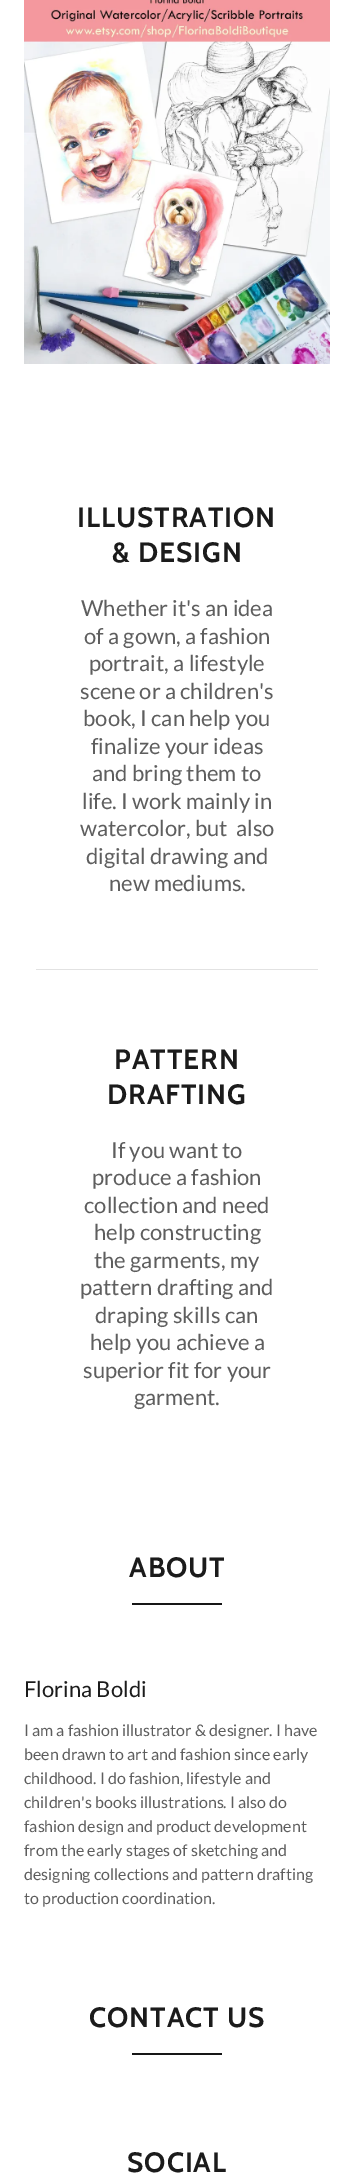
%!PS
<< /PageSize [354 2173] >> setpagedevice
/rgb { 3 { 255 div 3 1 roll } repeat setrgbcolor } def
/font { [ exch dup neg 0 0 3 -1 roll 0 0 ] selectfont } def
/picture { 5 dict begin { /h /w /y /x /name } { exch def } forall
  gsave x y translate w h scale
  w h 8 [w 0 0 h 0 0] name (r) file false 3 colorimage grestore end } def
0 2173 translate 1 -1 scale
4 setmiterlimit
255 255 255 rgb
0 0 354 2173 rectfill
(img/1.rgb) 24 0 306 364 picture
[
  [36 969 282 1 226 226 226]
  [132 1603 90 2 22 22 22]
  [132 2053 90 2 22 22 22]
] { aload pop rgb rectfill } forall
/Cabin-Bold 28 font
27 27 27 rgb
77 527 moveto 1 0 (ILLUSTRATION) ashow
112 562 moveto 1 0 (& DESIGN) ashow
/Lato-Regular 22 font
94 94 94 rgb
[
  [(Whether it's an idea) 81 616]
  [(of a gown, a fashion) 84 644]
  [(portrait, a lifestyle) 89 671]
  [(scene or a children's) 80 699]
  [(book, I can help you) 83 726]
  [(finalize your ideas) 91 754]
  [(and bring them to) 92 781]
  [(life. I work mainly in) 82 809]
  [(watercolor, but  also) 80 836]
  [(digital drawing and) 86 864]
  [(new mediums.) 109 891]
] { aload pop moveto show } forall
/Cabin-Bold 28 font
27 27 27 rgb
114 1069 moveto 1 0 (PATTERN) ashow
107 1104 moveto 1 0 (DRAFTING) ashow
/Lato-Regular 22 font
94 94 94 rgb
[
  [(If you want to) 111 1158]
  [(produce a fashion) 92 1185]
  [(collection and need) 84 1213]
  [(help constructing) 94 1240]
  [(the garments, my) 94 1268]
  [(pattern drafting and) 80 1295]
  [(draping skills can) 95 1323]
  [(help you achieve a) 90 1350]
  [(superior fit for your) 83 1378]
  [(garment.) 134 1405]
] { aload pop moveto show } forall
/Cabin-Bold 28 font
27 27 27 rgb
129 1577 moveto 1 0 (ABOUT) ashow
/Lato-Regular 22 font
24 1697 moveto (Florina Boldi) show
/Lato-Regular 16 font
94 94 94 rgb
[
  [(I am a fashion illustrator & designer. I have) 24 1736]
  [(been drawn to art and fashion since early) 24 1760]
  [(childhood. I do fashion, lifestyle and) 24 1784]
  [(children's books illustrations. I also do) 24 1808]
  [(fashion design and product development) 24 1832]
  [(from the early stages of sketching and) 24 1856]
  [(designing collections and pattern drafting) 24 1880]
  [(to production coordination.) 24 1904]
] { aload pop moveto show } forall
/Cabin-Bold 28 font
27 27 27 rgb
89 2027 moveto 1 0 (CONTACT US) ashow
127 2172 moveto 1 0 (SOCIAL) ashow
showpage
